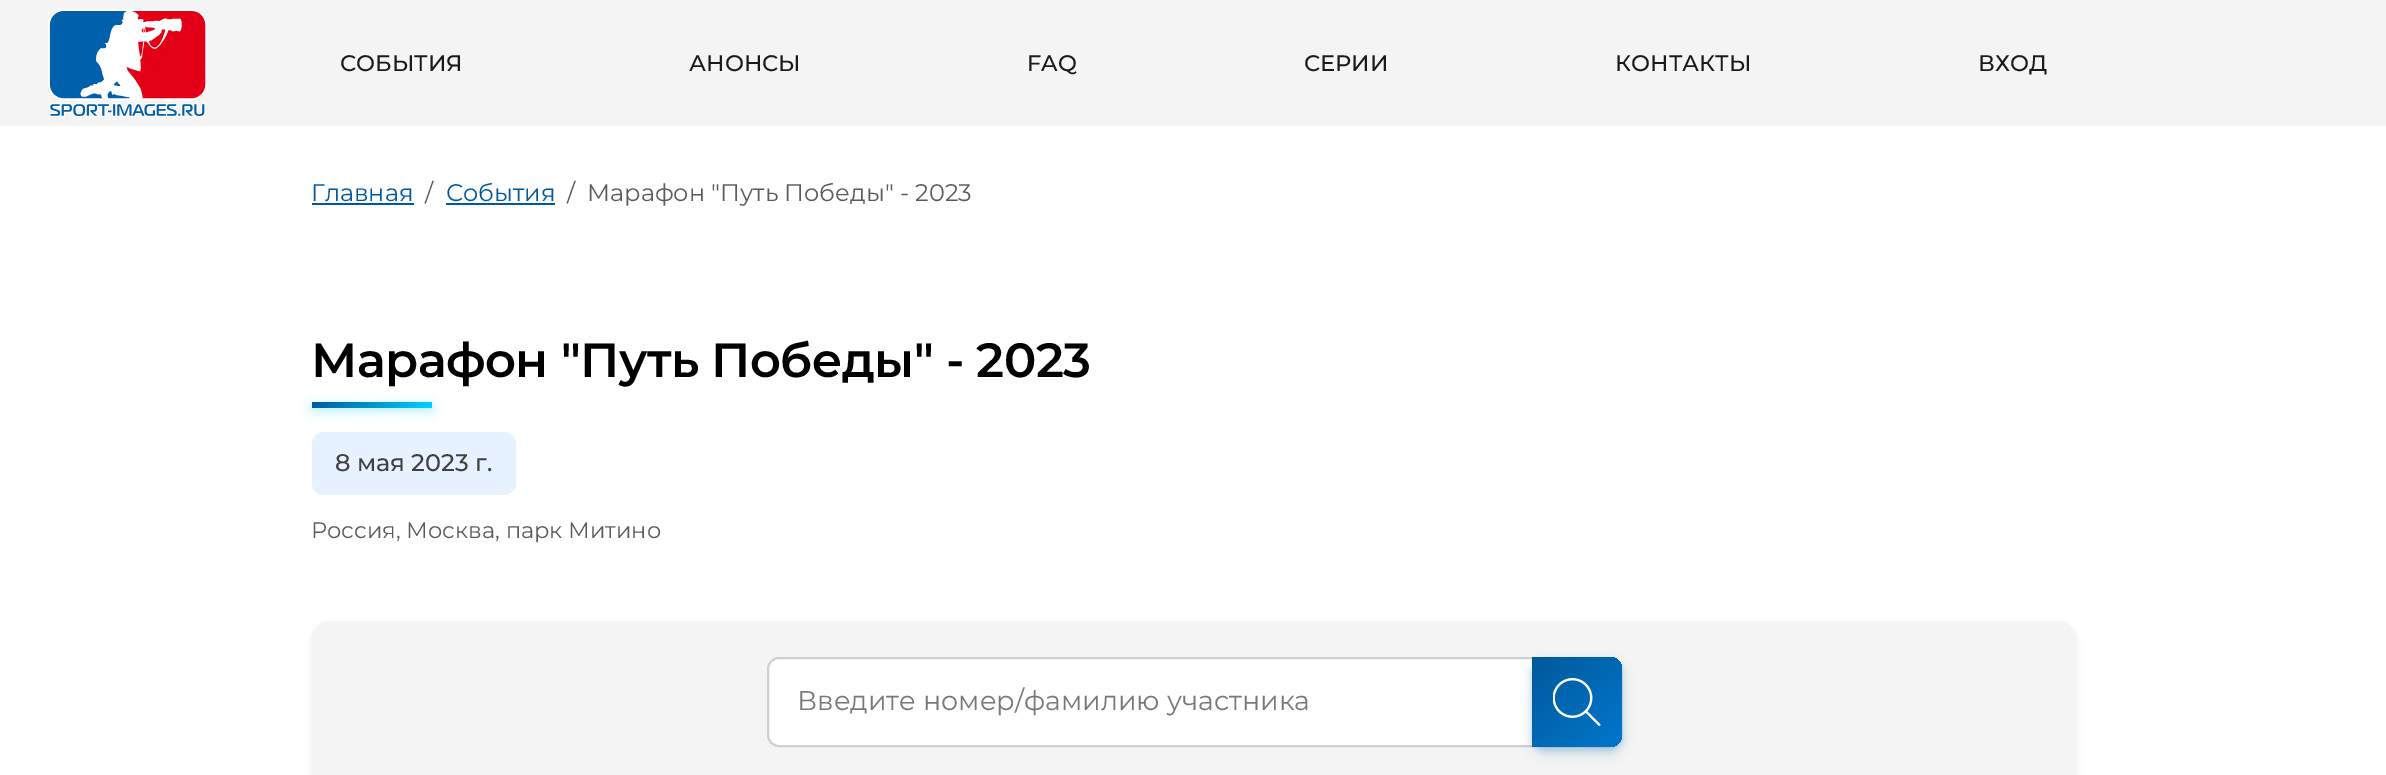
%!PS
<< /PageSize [2386 775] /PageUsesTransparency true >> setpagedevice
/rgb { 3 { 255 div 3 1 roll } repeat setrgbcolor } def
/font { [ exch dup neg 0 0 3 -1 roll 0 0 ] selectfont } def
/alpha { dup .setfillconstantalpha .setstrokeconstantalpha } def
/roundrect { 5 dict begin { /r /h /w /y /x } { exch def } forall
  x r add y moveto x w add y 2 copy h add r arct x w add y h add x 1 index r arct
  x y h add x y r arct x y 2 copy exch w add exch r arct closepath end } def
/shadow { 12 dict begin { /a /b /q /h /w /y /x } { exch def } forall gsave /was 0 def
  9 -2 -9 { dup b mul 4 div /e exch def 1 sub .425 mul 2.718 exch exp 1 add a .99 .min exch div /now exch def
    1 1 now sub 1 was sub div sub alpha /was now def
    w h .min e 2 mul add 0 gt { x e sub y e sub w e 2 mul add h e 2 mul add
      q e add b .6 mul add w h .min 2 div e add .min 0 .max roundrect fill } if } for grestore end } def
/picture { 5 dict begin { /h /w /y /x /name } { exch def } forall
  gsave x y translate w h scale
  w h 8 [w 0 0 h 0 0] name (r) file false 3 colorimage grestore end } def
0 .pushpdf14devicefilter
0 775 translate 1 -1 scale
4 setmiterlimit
255 255 255 rgb
0 0 2386 775 rectfill
244 244 244 rgb
0 0 2386 126 rectfill
(img/1.rgb) 48 9 159 108 picture
0 89 156 rgb
312 203 102 2 rectfill
446 203 109 2 rectfill
0 212 255 rgb
312 405 120 6 3 6 0.3 shadow
gsave 312 402 120 6 3 roundrect clip newpath
<< /ShadingType 2 /ColorSpace /DeviceRGB /Coords [341 374 404 437] /Extend [true true] /Function << /FunctionType 2 /Domain [0 1] /C0 [0 0.349 0.612] /C1 [0 0.831 1] /N 1 >> >> shfill grestore
230 242 255 rgb
312 432 204 63 12 roundrect fill
0 0 0 rgb
312 624 1764 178 18 3 0.08 shadow
244 244 244 rgb
312 621 1764 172 18 roundrect fill
255 255 255 rgb
768 658 853 88 11 roundrect gsave fill grestore
208 208 208 rgb
2 setlinewidth
stroke
0 89 156 rgb
1532 660 90 90 12 3 0.15 shadow
1532 663 90 90 12 6 0.2 shadow
gsave 1532 657 moveto 1610 657 lineto 1616.5 657 1622 662.5 1622 669 curveto 1622 735 lineto 1622 741.5 1616.5 747 1610 747 curveto 1532 747 lineto closepath clip newpath
<< /ShadingType 2 /ColorSpace /DeviceRGB /Coords [1532 657 1622 747] /Extend [true true] /Function << /FunctionType 2 /Domain [0 1] /C0 [0 0.349 0.612] /C1 [0 0.467 0.8] /N 1 >> >> shfill grestore
(img/2.rgb) 1553 678 48 48 picture
/Montserrat-Medium 22.5 font
27 25 30 rgb
[
  [(СОБЫТИЯ) 340 71]
  [(АНОНСЫ) 689 71]
  [(FAQ) 1027 71]
  [(СЕРИИ) 1304 71]
  [(КОНТАКТЫ) 1615 71]
  [(ВХОД) 1978 71]
] { aload pop moveto show } forall
/Montserrat-Regular 24 font
0 89 156 rgb
311 201 moveto (Главная) show
89 92 95 rgb
425 201 moveto (/) show
0 89 156 rgb
446 201 moveto (События) show
89 92 95 rgb
567 201 moveto (/) show
587 201 moveto (Марафон "Путь Победы" - 2023) show
/Montserrat-SemiBold 48 font
0 0 3 rgb
311 377 moveto -0.5 0 (Марафон "Путь Победы" - 2023) ashow
/Montserrat-Medium 24 font
64 64 64 rgb
335 471 moveto (8 мая 2023 г.) show
/Montserrat-Regular 22.5 font
89 92 95 rgb
311 538 moveto (Россия, Москва, парк Митино) show
/Montserrat-Regular 27 font
120 120 120 rgb
797 710 moveto (Введите номер/фамилию участника) show
.poppdf14devicefilter showpage
